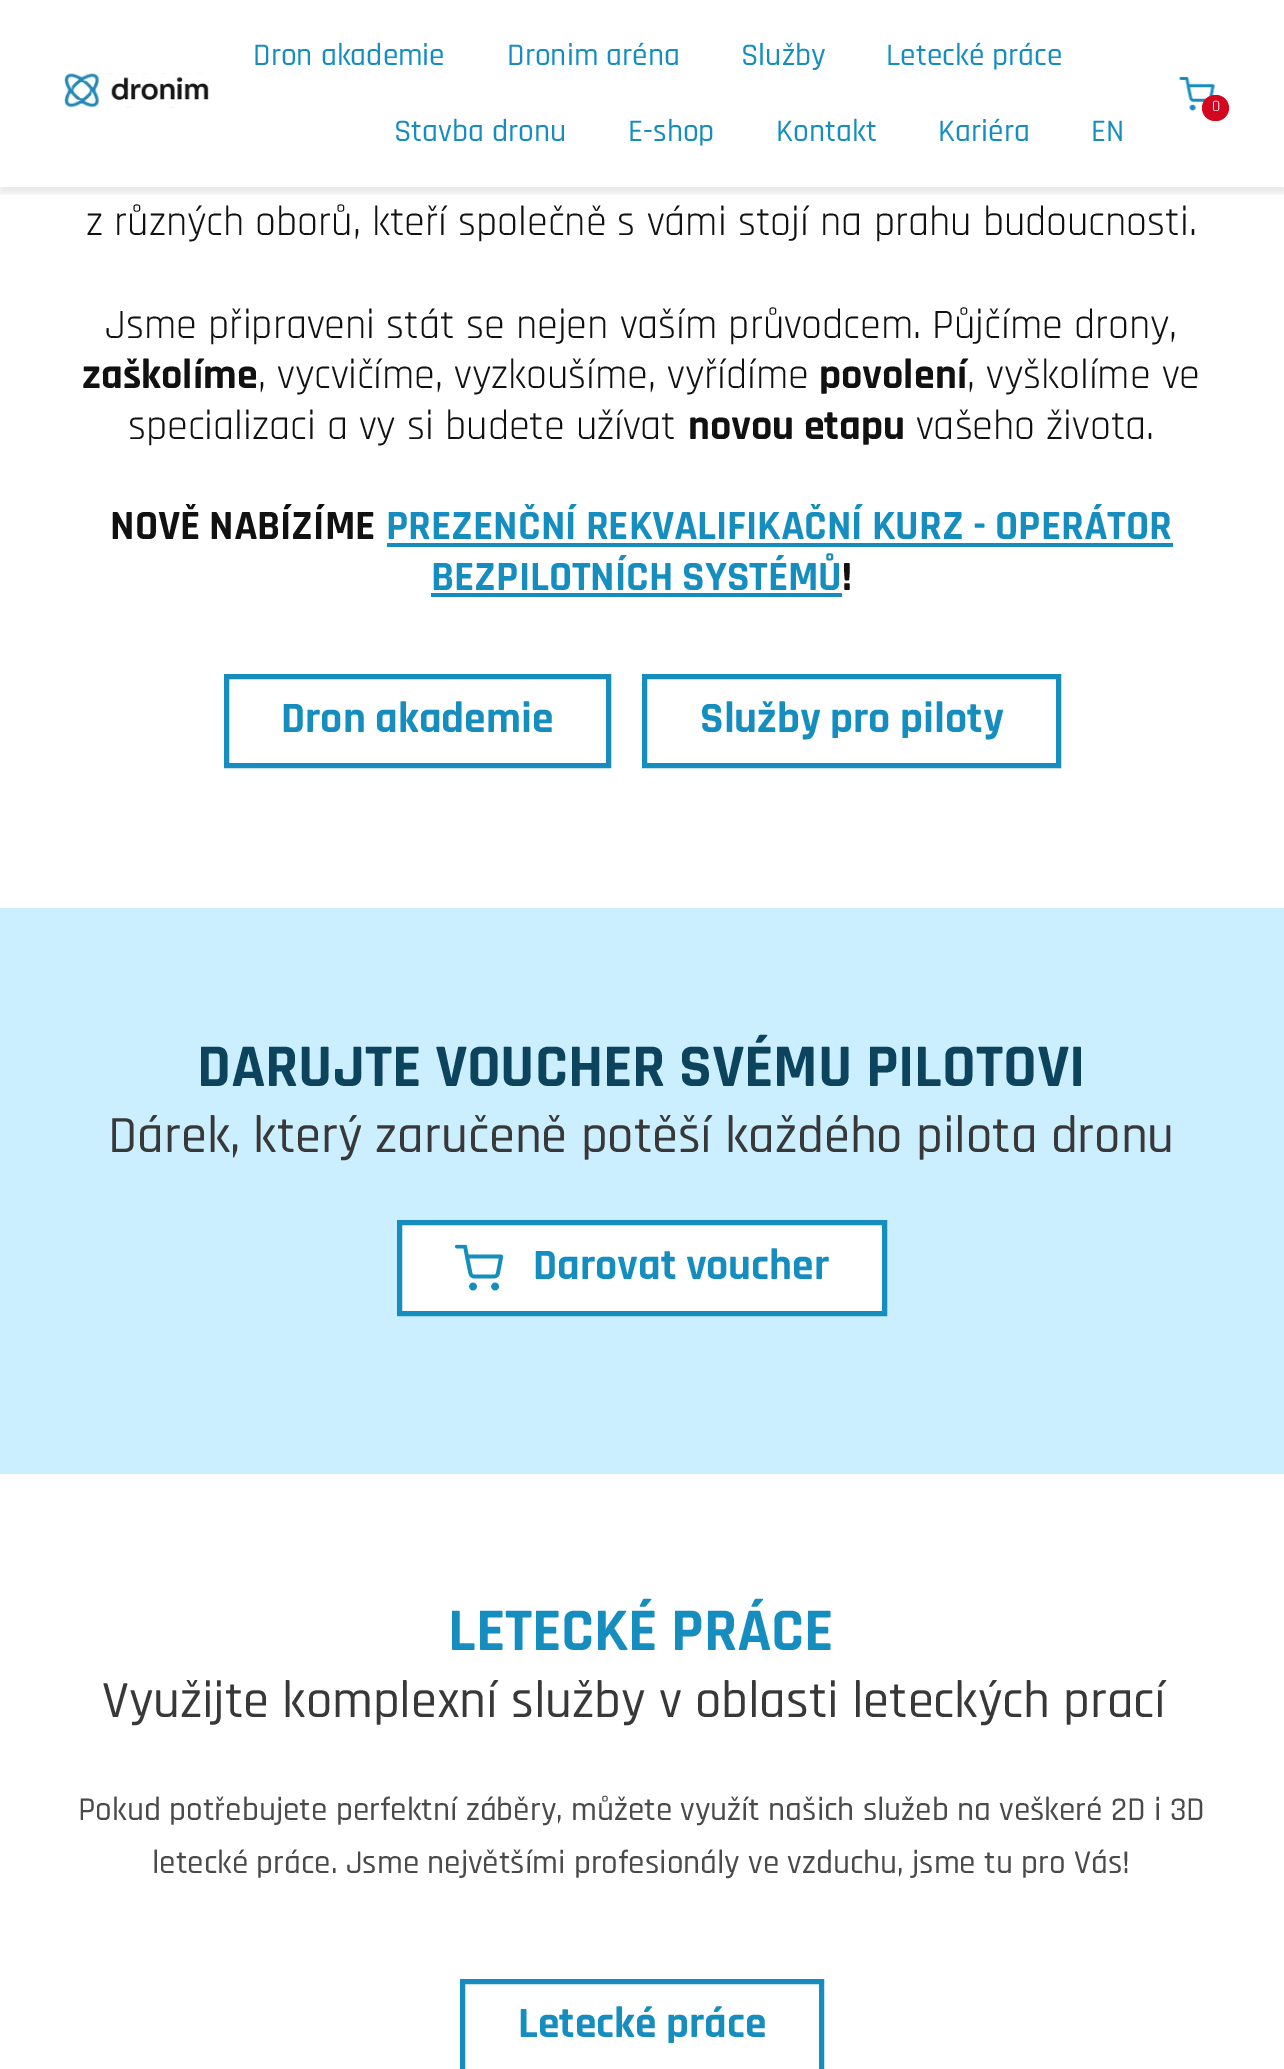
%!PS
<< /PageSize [1284 2069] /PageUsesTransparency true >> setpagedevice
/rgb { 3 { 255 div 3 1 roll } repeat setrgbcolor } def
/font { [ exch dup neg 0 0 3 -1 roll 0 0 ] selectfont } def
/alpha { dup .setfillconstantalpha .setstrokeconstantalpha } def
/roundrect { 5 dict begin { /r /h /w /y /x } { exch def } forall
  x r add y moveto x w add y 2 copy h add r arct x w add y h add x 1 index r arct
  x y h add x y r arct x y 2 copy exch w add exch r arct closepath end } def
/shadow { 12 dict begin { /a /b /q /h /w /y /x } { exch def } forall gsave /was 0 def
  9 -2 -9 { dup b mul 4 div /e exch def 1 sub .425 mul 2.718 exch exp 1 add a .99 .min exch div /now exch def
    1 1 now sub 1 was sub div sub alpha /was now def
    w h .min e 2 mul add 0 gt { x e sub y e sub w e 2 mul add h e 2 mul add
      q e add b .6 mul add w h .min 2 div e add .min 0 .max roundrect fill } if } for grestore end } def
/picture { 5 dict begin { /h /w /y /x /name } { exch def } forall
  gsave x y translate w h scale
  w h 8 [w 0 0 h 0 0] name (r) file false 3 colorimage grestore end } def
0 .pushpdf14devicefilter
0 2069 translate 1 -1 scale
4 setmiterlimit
255 255 255 rgb
0 0 1284 2069 rectfill
gsave
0 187 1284 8 rectclip
0 0 0 rgb
0 5 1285 188 0 2.5 0.08 shadow
grestore
(img/1.rgb) 64 73 145 35 picture
(img/2.rgb) 1179 77 36 34 picture
211 8 32 rgb
1202 95 27 26 13 roundrect fill
21 142 191 rgb
387 543 786 4 rectfill
431 593 411 4 rectfill
5 setlinewidth
226.5 676.5 382 89 rectstroke
644.5 676.5 414 89 rectstroke
204 239 255 rgb
0 908 1284 566 rectfill
255 255 255 rgb
399.5 1222.5 moveto 884.5 1222.5 lineto 884.5 1313.5 lineto 399.5 1313.5 lineto closepath gsave fill grestore
21 142 191 rgb
stroke
(img/3.rgb) 455 1244 48 47 picture
462.5 1981.5 359 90 rectstroke
/Rajdhani-Medium 31.5 font
[
  [(Dron akademie) 253 65]
  [(Dronim aréna) 507 65]
  [(Služby) 741 65]
  [(Letecké práce) 886 65]
  [(Stavba dronu) 394 141]
  [(E-shop) 628 141]
  [(Kontakt) 776 141]
  [(Kariéra) 938 141]
  [(EN) 1091 141]
] { aload pop moveto show } forall
/Rajdhani-Regular 16 font
255 255 255 rgb
1212 111 moveto (0) show
/Rajdhani-Regular 42 font
17 17 17 rgb
86 235 moveto (z různých oborů, kteří společně s vámi stojí na prahu budoucnosti.) show
105 338 moveto (Jsme připraveni stát se nejen vaším průvodcem. Půjčíme drony,) show
/Rajdhani-Bold 42 font
82 388 moveto (zaškolíme) show
/Rajdhani-Regular 42 font
258 388 moveto (, vycvičíme, vyzkoušíme, vyřídíme) show
/Rajdhani-Bold 42 font
819 388 moveto (povolení) show
/Rajdhani-Regular 42 font
967 388 moveto (, vyškolíme ve) show
128 439 moveto (specializaci a vy si budete užívat) show
/Rajdhani-Bold 42 font
688 439 moveto (novou etapu) show
/Rajdhani-Regular 42 font
916 439 moveto (vašeho života.) show
/Rajdhani-Bold 42 font
110 539 moveto (NOVĚ NABÍZÍME) show
21 142 191 rgb
386 539 moveto (PREZENČNÍ REKVALIFIKAČNÍ KURZ - OPERÁTOR) show
431 590 moveto (BEZPILOTNÍCH SYSTÉMŮ) show
17 17 17 rgb
842 590 moveto (!) show
/Rajdhani-Bold 43.75 font
21 142 191 rgb
281 732 moveto (Dron akademie) show
700 732 moveto (Služby pro piloty) show
/Rajdhani-Bold 61.25 font
11 68 92 rgb
197 1086 moveto (DARUJTE VOUCHER SVÉMU PILOTOVI) show
/Rajdhani-Medium 52.5 font
56 56 56 rgb
108 1152 moveto (Dárek, který zaručeně potěší každého pilota dronu) show
/Rajdhani-Bold 43.75 font
21 142 191 rgb
533 1279 moveto (Darovat voucher) show
/Rajdhani-Bold 61.25 font
448 1650 moveto (LETECKÉ PRÁCE) show
/Rajdhani-Medium 52.5 font
56 56 56 rgb
102 1717 moveto (Využijte komplexní služby v oblasti leteckých prací) show
/Rajdhani-Medium 33.25 font
74 74 74 rgb
78 1820 moveto (Pokud potřebujete perfektní záběry, můžete využít našich služeb na veškeré 2D i 3D) show
152 1873 moveto (letecké práce. Jsme největšími profesionály ve vzduchu, jsme tu pro Vás!) show
/Rajdhani-Bold 43.75 font
21 142 191 rgb
518 2037 moveto (Letecké práce) show
.poppdf14devicefilter showpage
